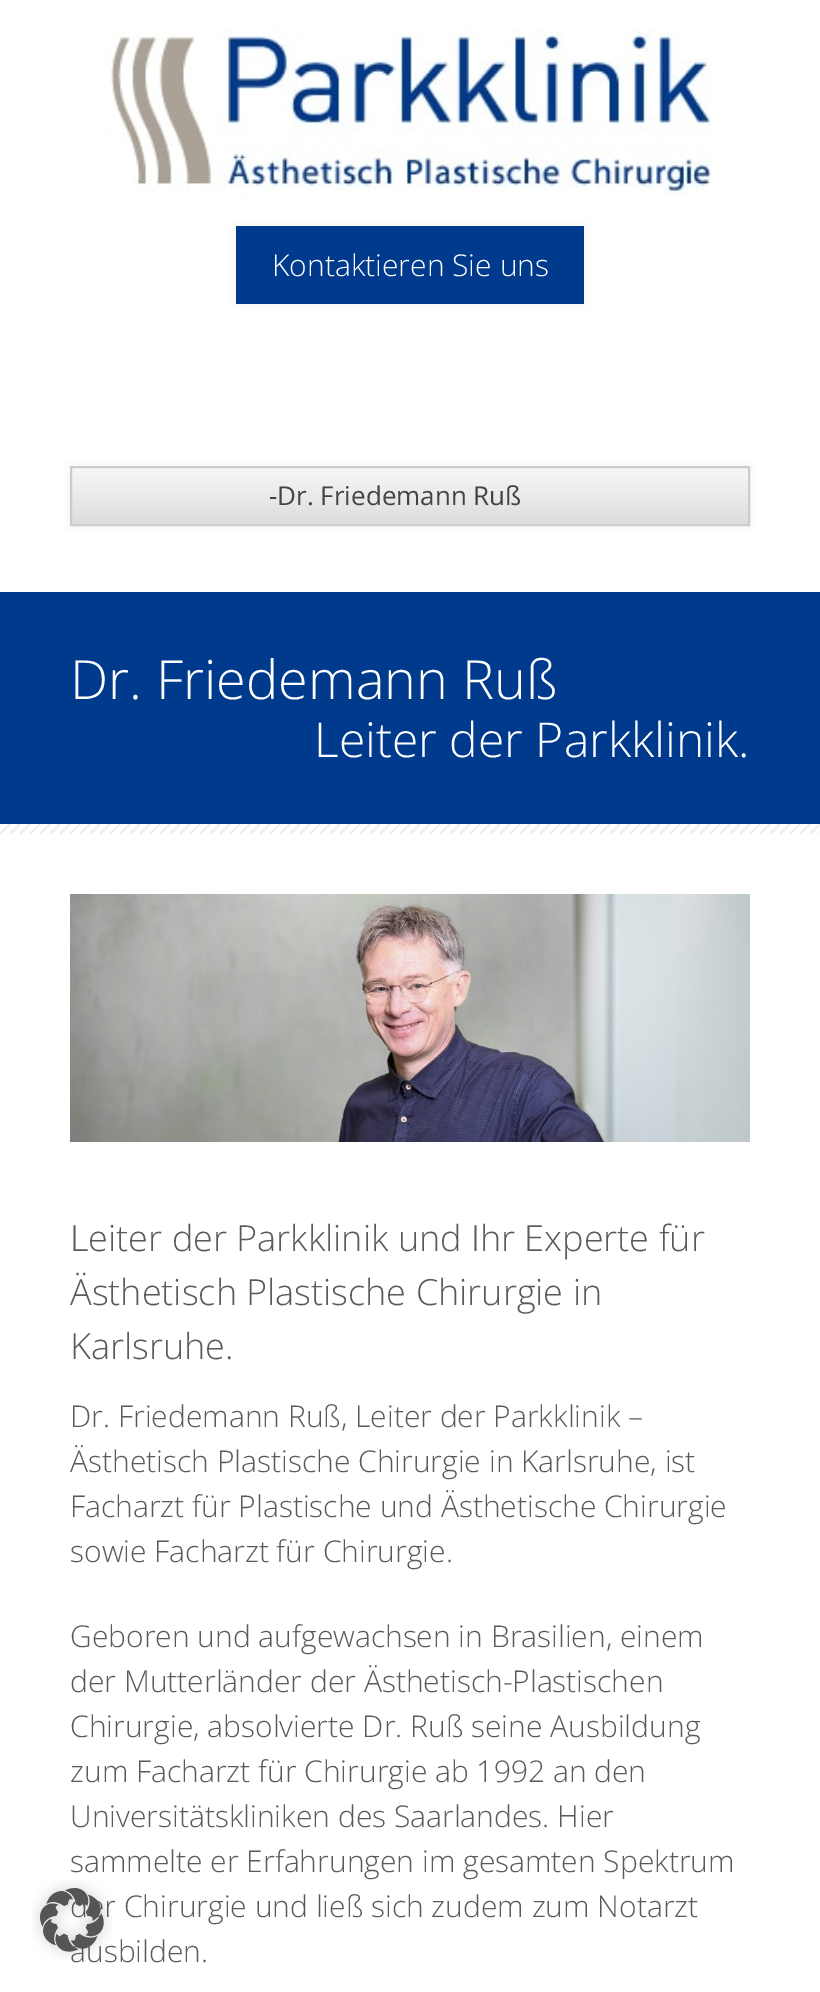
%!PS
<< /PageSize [820 1992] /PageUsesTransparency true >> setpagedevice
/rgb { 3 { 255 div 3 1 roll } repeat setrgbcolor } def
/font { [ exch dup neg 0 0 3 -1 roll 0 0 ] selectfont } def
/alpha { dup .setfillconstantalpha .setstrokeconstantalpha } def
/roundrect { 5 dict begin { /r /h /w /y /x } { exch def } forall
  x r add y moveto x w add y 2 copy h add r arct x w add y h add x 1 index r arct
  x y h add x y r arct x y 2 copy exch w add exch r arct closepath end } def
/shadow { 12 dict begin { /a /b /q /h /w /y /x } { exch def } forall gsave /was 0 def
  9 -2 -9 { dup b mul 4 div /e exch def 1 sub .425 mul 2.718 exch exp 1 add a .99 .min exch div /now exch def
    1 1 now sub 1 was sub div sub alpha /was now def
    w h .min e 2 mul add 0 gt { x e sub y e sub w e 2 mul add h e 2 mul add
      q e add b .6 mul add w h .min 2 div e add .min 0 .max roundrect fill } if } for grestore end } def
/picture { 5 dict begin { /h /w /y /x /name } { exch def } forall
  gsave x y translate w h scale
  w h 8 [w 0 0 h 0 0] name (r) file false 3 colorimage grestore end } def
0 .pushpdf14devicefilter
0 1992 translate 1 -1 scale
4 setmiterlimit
255 255 255 rgb
0 0 820 1992 rectfill
(img/1.rgb) 106 30 606 166 picture
50 50 50 rgb
236 226 348 78 0 5 0.05 shadow
0 58 140 rgb
236 226 348 78 rectfill
50 50 50 rgb
70 466 680 60 0 5 0.05 shadow
gsave 72 468 moveto 748 468 lineto 748 524 lineto 72 524 lineto closepath clip newpath
<< /ShadingType 2 /ColorSpace /DeviceRGB /Coords [410 468 410 524] /Extend [true true] /Function << /FunctionType 2 /Domain [0 1] /C0 [0.969 0.969 0.969] /C1 [0.867 0.867 0.867] /N 1 >> >> shfill grestore
204 204 204 rgb
2 setlinewidth
71 467 678 58 rectstroke
0 58 140 rgb
0 592 820 232 rectfill
(img/2.rgb) 0 824 820 10 picture
(img/3.rgb) 70 894 680 248 picture
/OpenSans-Light 30 font
255 255 255 rgb
272 276 moveto (Kontaktieren Sie uns) show
/OpenSans-Regular 26 font
68 68 68 rgb
269 505 moveto (-Dr. Friedemann Ruß) show
/OpenSans-Light 54 font
255 255 255 rgb
70 699 moveto (Dr. Friedemann Ruß) show
/OpenSans-Light 48 font
314 757 moveto (Leiter der Parkklinik.) show
/OpenSans-Light 36 font
90 90 90 rgb
[
  [(Leiter der Parkklinik und Ihr Experte für) 70 1251]
  [(Ästhetisch Plastische Chirurgie in) 70 1305]
  [(Karlsruhe.) 70 1359]
] { aload pop moveto show } forall
/OpenSans-Light 30 font
[
  [(Dr. Friedemann Ruß, Leiter der Parkklinik –) 70 1427]
  [(Ästhetisch Plastische Chirurgie in Karlsruhe, ist) 70 1472]
  [(Facharzt für Plastische und Ästhetische Chirurgie) 70 1517]
  [(sowie Facharzt für Chirurgie.) 70 1562]
  [(Geboren und aufgewachsen in Brasilien, einem) 70 1647]
  [(der Mutterländer der Ästhetisch-Plastischen) 70 1692]
  [(Chirurgie, absolvierte Dr. Ruß seine Ausbildung) 70 1737]
  [(zum Facharzt für Chirurgie ab 1992 an den) 70 1782]
  [(Universitätskliniken des Saarlandes. Hier) 70 1827]
  [(sammelte er Erfahrungen im gesamten Spektrum) 70 1872]
  [(der Chirurgie und ließ sich zudem zum Notarzt) 70 1917]
  [(ausbilden.) 70 1962]
] { aload pop moveto show } forall
(img/4.rgb) 32 1880 80 80 picture
.poppdf14devicefilter showpage
